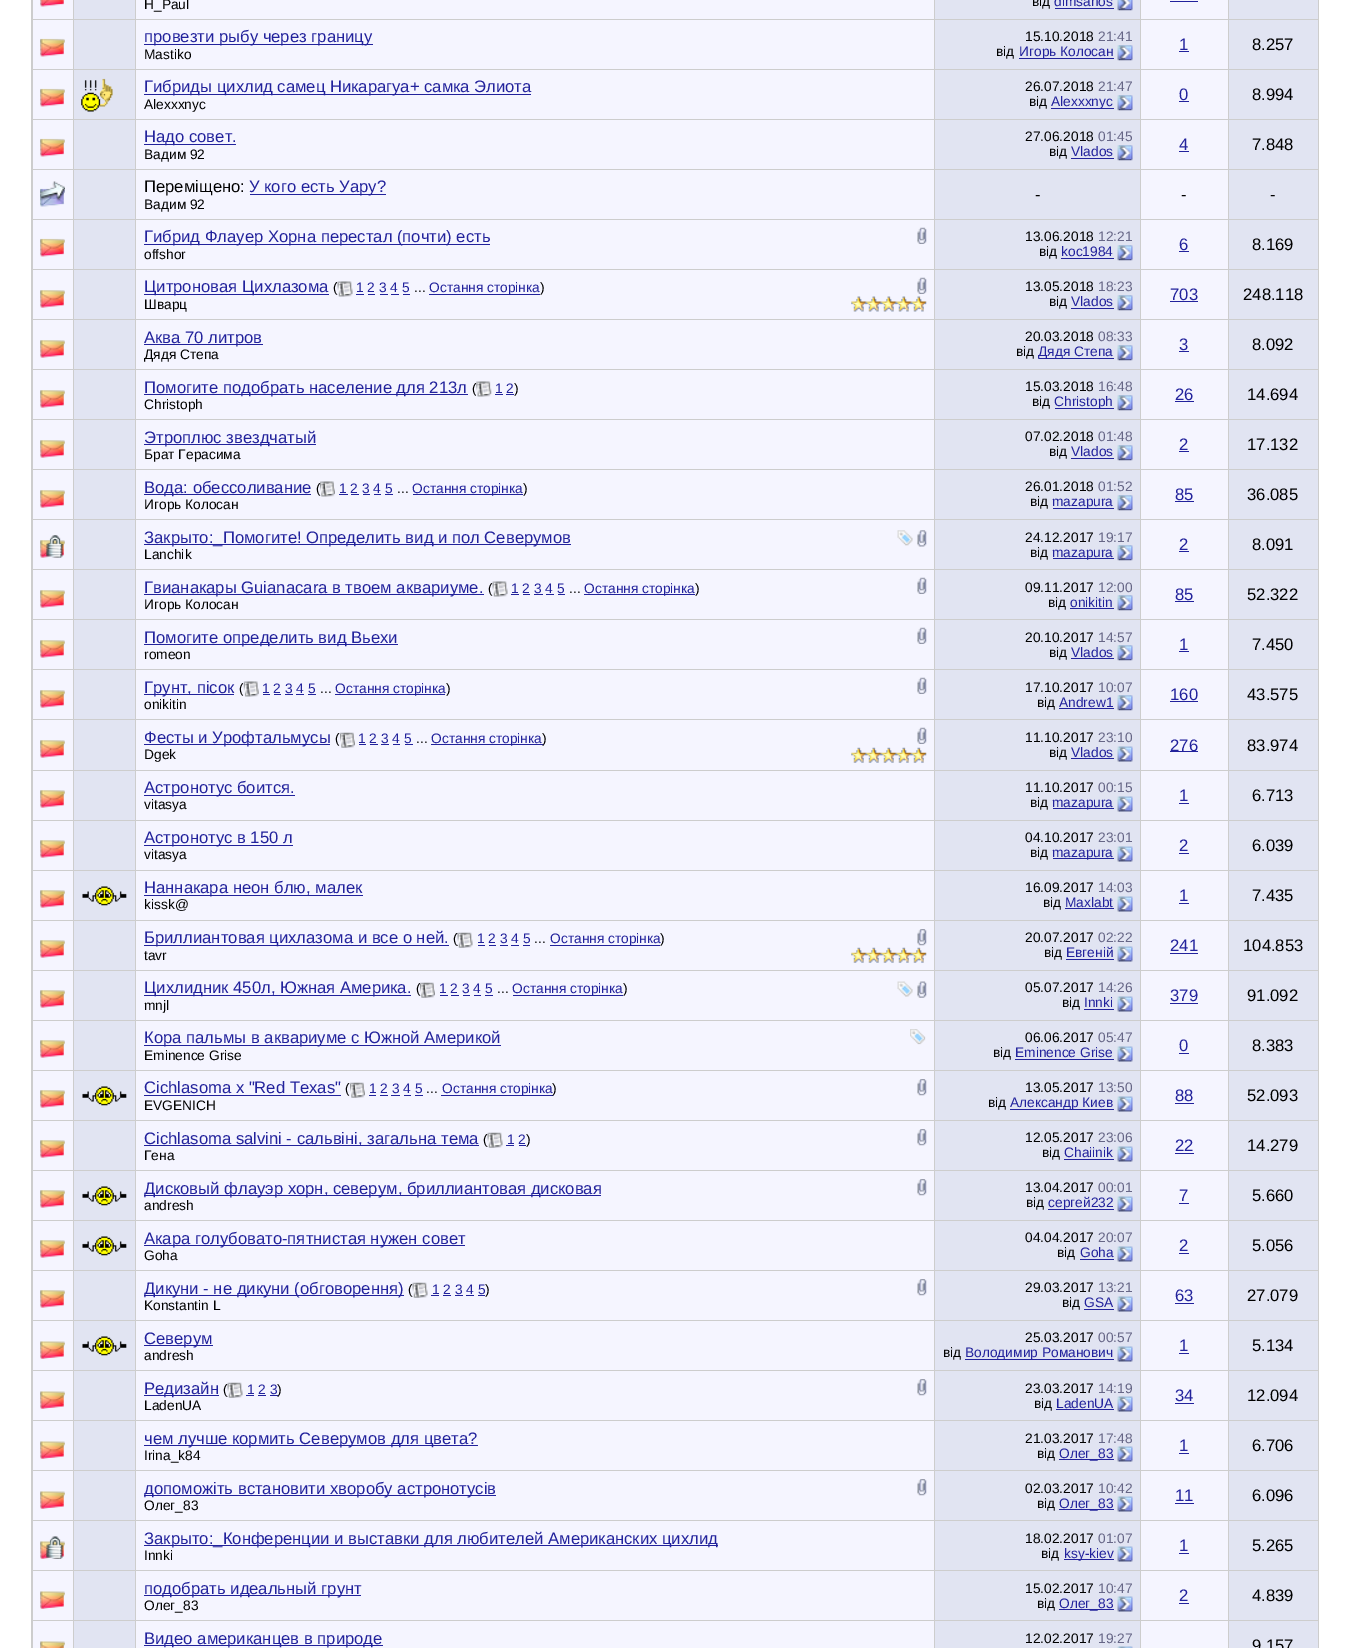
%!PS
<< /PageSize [1349 1648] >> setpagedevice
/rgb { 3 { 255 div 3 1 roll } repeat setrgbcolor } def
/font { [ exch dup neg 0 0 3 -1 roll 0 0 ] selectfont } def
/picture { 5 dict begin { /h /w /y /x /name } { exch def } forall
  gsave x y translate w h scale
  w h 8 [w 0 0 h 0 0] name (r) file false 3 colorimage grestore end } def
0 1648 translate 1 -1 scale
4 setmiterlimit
255 255 255 rgb
0 0 1349 1648 rectfill
205 205 205 rgb
31 0 1288 1648 rectfill
245 245 255 rgb
33 0 40 19 rectfill
(img/1.rgb) 40 0 24 7 picture
[
  [74 0 61 19 225 228 242]
  [136 0 798 19 245 245 255]
  [935 0 205 19 225 228 242]
  [1055 8 59 1 34 34 156]
] { aload pop rgb rectfill } forall
(img/2.rgb) 1117 0 16 11 picture
[
  [1141 0 87 19 245 245 255]
  [1170 1 28 1 34 34 156]
  [1229 0 89 19 225 228 242]
  [33 20 40 49 245 245 255]
] { aload pop rgb rectfill } forall
(img/3.rgb) 40 38 25 19 picture
[
  [74 20 61 49 225 228 242]
  [136 20 798 49 245 245 255]
  [144 44 229 1 34 34 156]
  [935 20 205 49 225 228 242]
  [1019 58 95 1 34 34 156]
] { aload pop rgb rectfill } forall
(img/4.rgb) 1117 45 16 16 picture
[
  [1141 20 87 49 245 245 255]
  [1179 51 10 1 34 34 156]
  [1229 20 89 49 225 228 242]
  [33 70 40 49 245 245 255]
] { aload pop rgb rectfill } forall
(img/3.rgb) 40 88 25 19 picture
225 228 242 rgb
74 70 61 49 rectfill
(img/5.rgb) 81 78 32 34 picture
[
  [136 70 798 49 245 245 255]
  [144 94 387 1 34 34 156]
  [935 70 205 49 225 228 242]
  [1051 108 63 1 34 34 156]
] { aload pop rgb rectfill } forall
(img/4.rgb) 1117 95 16 16 picture
[
  [1141 70 87 49 245 245 255]
  [1179 101 10 1 34 34 156]
  [1229 70 89 49 225 228 242]
  [33 120 40 49 245 245 255]
] { aload pop rgb rectfill } forall
(img/3.rgb) 40 138 25 19 picture
[
  [74 120 61 49 225 228 242]
  [136 120 798 49 245 245 255]
  [144 144 92 1 34 34 156]
  [935 120 205 49 225 228 242]
  [1071 158 43 1 34 34 156]
] { aload pop rgb rectfill } forall
(img/4.rgb) 1117 145 16 16 picture
[
  [1141 120 87 49 245 245 255]
  [1179 151 10 1 34 34 156]
  [1229 120 89 49 225 228 242]
  [33 170 40 49 245 245 255]
] { aload pop rgb rectfill } forall
(img/6.rgb) 40 181 25 26 picture
[
  [74 170 61 49 225 228 242]
  [136 170 798 49 245 245 255]
  [250 194 136 1 34 34 156]
  [935 170 205 49 225 228 242]
  [1141 170 87 49 245 245 255]
  [1229 170 89 49 225 228 242]
  [33 220 40 49 245 245 255]
] { aload pop rgb rectfill } forall
(img/3.rgb) 40 238 25 19 picture
[
  [74 220 61 49 225 228 242]
  [136 220 798 49 245 245 255]
  [144 244 346 1 34 34 156]
] { aload pop rgb rectfill } forall
(img/7.rgb) 917 227 10 17 picture
225 228 242 rgb
935 220 205 49 rectfill
34 34 156 rgb
1061 258 53 1 rectfill
(img/4.rgb) 1117 245 16 16 picture
[
  [1141 220 87 49 245 245 255]
  [1179 251 10 1 34 34 156]
  [1229 220 89 49 225 228 242]
  [33 270 40 49 245 245 255]
] { aload pop rgb rectfill } forall
(img/8.rgb) 40 290 25 18 picture
[
  [74 270 61 49 225 228 242]
  [136 270 798 49 245 245 255]
  [144 294 185 1 34 34 156]
  [356 294 8 1 34 34 156]
  [368 294 7 1 34 34 156]
  [380 294 8 1 34 34 156]
  [391 294 8 1 34 34 156]
  [403 294 7 1 34 34 156]
  [429 294 111 1 34 34 156]
] { aload pop rgb rectfill } forall
(img/7.rgb) 917 277 10 17 picture
(img/10.rgb) 851 296 76 16 picture
225 228 242 rgb
935 270 205 49 rectfill
34 34 156 rgb
1071 308 43 1 rectfill
(img/4.rgb) 1117 295 16 16 picture
[
  [1141 270 87 49 245 245 255]
  [1170 301 28 1 34 34 156]
  [1229 270 89 49 225 228 242]
  [33 320 40 49 245 245 255]
] { aload pop rgb rectfill } forall
(img/8.rgb) 40 340 25 18 picture
[
  [74 320 61 49 225 228 242]
  [136 320 798 49 245 245 255]
  [144 344 119 1 34 34 156]
  [935 320 205 49 225 228 242]
  [1039 358 75 1 34 34 156]
] { aload pop rgb rectfill } forall
(img/4.rgb) 1117 345 16 16 picture
[
  [1141 320 87 49 245 245 255]
  [1179 351 10 1 34 34 156]
  [1229 320 89 49 225 228 242]
  [33 370 40 49 245 245 255]
] { aload pop rgb rectfill } forall
(img/8.rgb) 40 390 25 18 picture
[
  [74 370 61 49 225 228 242]
  [136 370 798 49 245 245 255]
  [144 394 324 1 34 34 156]
  [495 394 8 1 34 34 156]
  [506 394 8 1 34 34 156]
  [935 370 205 49 225 228 242]
  [1055 408 59 1 34 34 156]
] { aload pop rgb rectfill } forall
(img/4.rgb) 1117 395 16 16 picture
[
  [1141 370 87 49 245 245 255]
  [1175 401 19 1 34 34 156]
  [1229 370 89 49 225 228 242]
  [33 420 40 49 245 245 255]
] { aload pop rgb rectfill } forall
(img/8.rgb) 40 440 25 18 picture
[
  [74 420 61 49 225 228 242]
  [136 420 798 49 245 245 255]
  [144 444 172 1 34 34 156]
  [935 420 205 49 225 228 242]
  [1071 458 43 1 34 34 156]
] { aload pop rgb rectfill } forall
(img/4.rgb) 1117 445 16 16 picture
[
  [1141 420 87 49 245 245 255]
  [1179 451 10 1 34 34 156]
  [1229 420 89 49 225 228 242]
  [33 470 40 49 245 245 255]
] { aload pop rgb rectfill } forall
(img/12.rgb) 40 490 25 18 picture
[
  [74 470 61 49 225 228 242]
  [136 470 798 49 245 245 255]
  [144 494 167 1 34 34 156]
  [339 494 9 1 34 34 156]
  [351 494 8 1 34 34 156]
  [363 494 7 1 34 34 156]
  [374 494 7 1 34 34 156]
  [385 494 8 1 34 34 156]
  [413 494 110 1 34 34 156]
  [935 470 205 49 225 228 242]
  [1053 508 61 1 34 34 156]
] { aload pop rgb rectfill } forall
(img/4.rgb) 1117 495 16 16 picture
[
  [1141 470 87 49 245 245 255]
  [1175 501 19 1 34 34 156]
  [1229 470 89 49 225 228 242]
  [33 520 40 49 245 245 255]
] { aload pop rgb rectfill } forall
(img/14.rgb) 40 535 25 23 picture
[
  [74 520 61 49 225 228 242]
  [136 520 798 49 245 245 255]
  [144 544 427 1 34 34 156]
] { aload pop rgb rectfill } forall
(img/15.rgb) 897 530 16 16 picture
(img/16.rgb) 917 530 10 17 picture
225 228 242 rgb
935 520 205 49 rectfill
34 34 156 rgb
1053 558 61 1 rectfill
(img/4.rgb) 1117 545 16 16 picture
[
  [1141 520 87 49 245 245 255]
  [1179 551 10 1 34 34 156]
  [1229 520 89 49 225 228 242]
  [33 570 40 49 245 245 255]
] { aload pop rgb rectfill } forall
(img/8.rgb) 40 590 25 18 picture
[
  [74 570 61 49 225 228 242]
  [136 570 798 49 245 245 255]
  [144 594 340 1 34 34 156]
  [511 594 8 1 34 34 156]
  [523 594 7 1 34 34 156]
  [534 594 9 1 34 34 156]
  [546 594 8 1 34 34 156]
  [558 594 7 1 34 34 156]
  [584 594 111 1 34 34 156]
] { aload pop rgb rectfill } forall
(img/7.rgb) 917 577 10 17 picture
225 228 242 rgb
935 570 205 49 rectfill
34 34 156 rgb
1070 608 44 1 rectfill
(img/4.rgb) 1117 595 16 16 picture
[
  [1141 570 87 49 245 245 255]
  [1175 601 19 1 34 34 156]
  [1229 570 89 49 225 228 242]
  [33 620 40 49 245 245 255]
] { aload pop rgb rectfill } forall
(img/8.rgb) 40 640 25 18 picture
[
  [74 620 61 49 225 228 242]
  [136 620 798 49 245 245 255]
  [144 644 254 1 34 34 156]
] { aload pop rgb rectfill } forall
(img/7.rgb) 917 627 10 17 picture
225 228 242 rgb
935 620 205 49 rectfill
34 34 156 rgb
1071 658 43 1 rectfill
(img/4.rgb) 1117 645 16 16 picture
[
  [1141 620 87 49 245 245 255]
  [1179 651 10 1 34 34 156]
  [1229 620 89 49 225 228 242]
  [33 670 40 49 245 245 255]
] { aload pop rgb rectfill } forall
(img/18.rgb) 40 690 25 18 picture
[
  [74 670 61 49 225 228 242]
  [136 670 798 49 245 245 255]
  [144 694 90 1 34 34 156]
  [263 694 7 1 34 34 156]
  [274 694 7 1 34 34 156]
  [285 694 8 1 34 34 156]
  [296 694 8 1 34 34 156]
  [308 694 8 1 34 34 156]
  [335 694 110 1 34 34 156]
] { aload pop rgb rectfill } forall
(img/20.rgb) 917 677 10 17 picture
225 228 242 rgb
935 670 205 49 rectfill
34 34 156 rgb
1059 708 55 1 rectfill
(img/4.rgb) 1117 695 16 16 picture
[
  [1141 670 87 49 245 245 255]
  [1170 701 28 1 34 34 156]
  [1229 670 89 49 225 228 242]
  [33 720 40 50 245 245 255]
] { aload pop rgb rectfill } forall
(img/8.rgb) 40 740 25 18 picture
[
  [74 720 61 50 225 228 242]
  [136 720 798 50 245 245 255]
  [144 744 186 1 34 34 156]
] { aload pop rgb rectfill } forall
(img/21.rgb) 340 732 15 16 picture
[
  [359 744 7 1 34 34 156]
  [370 744 8 1 34 34 156]
  [381 744 8 1 34 34 156]
  [393 744 7 1 34 34 156]
  [405 744 8 1 34 34 156]
  [431 744 112 1 34 34 156]
] { aload pop rgb rectfill } forall
(img/7.rgb) 917 727 10 17 picture
(img/22.rgb) 851 747 76 16 picture
225 228 242 rgb
935 720 205 50 rectfill
34 34 156 rgb
1071 758 43 1 rectfill
(img/23.rgb) 1117 746 16 16 picture
[
  [1141 720 87 50 245 245 255]
  [1170 751 28 1 34 34 156]
  [1229 720 89 50 225 228 242]
  [33 771 40 49 245 245 255]
] { aload pop rgb rectfill } forall
(img/8.rgb) 40 790 25 18 picture
[
  [74 771 61 49 225 228 242]
  [136 771 798 49 245 245 255]
  [144 795 151 1 34 34 156]
  [935 771 205 49 225 228 242]
  [1053 808 61 1 34 34 156]
] { aload pop rgb rectfill } forall
(img/23.rgb) 1117 796 16 16 picture
[
  [1141 771 87 49 245 245 255]
  [1179 803 10 1 34 34 156]
  [1229 771 89 49 225 228 242]
  [33 821 40 49 245 245 255]
] { aload pop rgb rectfill } forall
(img/8.rgb) 40 840 25 18 picture
[
  [74 821 61 49 225 228 242]
  [136 821 798 49 245 245 255]
  [144 845 149 1 34 34 156]
  [935 821 205 49 225 228 242]
  [1053 858 61 1 34 34 156]
] { aload pop rgb rectfill } forall
(img/23.rgb) 1117 846 16 16 picture
[
  [1141 821 87 49 245 245 255]
  [1179 853 10 1 34 34 156]
  [1229 821 89 49 225 228 242]
  [33 871 40 49 245 245 255]
] { aload pop rgb rectfill } forall
(img/8.rgb) 40 890 25 18 picture
225 228 242 rgb
74 871 61 49 rectfill
(img/24.rgb) 82 886 45 20 picture
[
  [136 871 798 49 245 245 255]
  [144 895 219 1 34 34 156]
  [935 871 205 49 225 228 242]
  [1065 908 49 1 34 34 156]
] { aload pop rgb rectfill } forall
(img/23.rgb) 1117 896 16 16 picture
[
  [1141 871 87 49 245 245 255]
  [1179 903 10 1 34 34 156]
  [1229 871 89 49 225 228 242]
  [33 921 40 49 245 245 255]
] { aload pop rgb rectfill } forall
(img/8.rgb) 40 940 25 18 picture
[
  [74 921 61 49 225 228 242]
  [136 921 798 49 245 245 255]
  [144 945 305 1 34 34 156]
  [478 945 7 1 34 34 156]
  [489 945 7 1 34 34 156]
  [500 945 8 1 34 34 156]
  [511 945 8 1 34 34 156]
  [523 945 7 1 34 34 156]
  [550 945 110 1 34 34 156]
] { aload pop rgb rectfill } forall
(img/26.rgb) 917 929 10 17 picture
(img/22.rgb) 851 947 76 16 picture
225 228 242 rgb
935 921 205 49 rectfill
34 34 156 rgb
1066 959 48 1 rectfill
(img/23.rgb) 1117 946 16 16 picture
[
  [1141 921 87 49 245 245 255]
  [1170 953 28 1 34 34 156]
  [1229 921 89 49 225 228 242]
  [33 971 40 49 245 245 255]
] { aload pop rgb rectfill } forall
(img/8.rgb) 40 990 25 18 picture
[
  [74 971 61 49 225 228 242]
  [136 971 798 49 245 245 255]
  [144 995 267 1 34 34 156]
  [440 995 8 1 34 34 156]
  [451 995 8 1 34 34 156]
  [463 995 7 1 34 34 156]
  [474 995 7 1 34 34 156]
  [485 995 8 1 34 34 156]
  [513 995 110 1 34 34 156]
] { aload pop rgb rectfill } forall
(img/28.rgb) 897 981 16 16 picture
(img/29.rgb) 917 981 10 17 picture
225 228 242 rgb
935 971 205 49 rectfill
34 34 156 rgb
1084 1009 30 1 rectfill
(img/23.rgb) 1117 996 16 16 picture
[
  [1141 971 87 49 245 245 255]
  [1170 1003 28 1 34 34 156]
  [1229 971 89 49 225 228 242]
  [33 1021 40 49 245 245 255]
] { aload pop rgb rectfill } forall
(img/8.rgb) 40 1040 25 18 picture
[
  [74 1021 61 49 225 228 242]
  [136 1021 798 49 245 245 255]
  [144 1045 357 1 34 34 156]
] { aload pop rgb rectfill } forall
(img/30.rgb) 910 1029 16 16 picture
225 228 242 rgb
935 1021 205 49 rectfill
34 34 156 rgb
1015 1059 99 1 rectfill
(img/23.rgb) 1117 1046 16 16 picture
[
  [1141 1021 87 49 245 245 255]
  [1179 1053 10 1 34 34 156]
  [1229 1021 89 49 225 228 242]
  [33 1071 40 49 245 245 255]
] { aload pop rgb rectfill } forall
(img/8.rgb) 40 1090 25 18 picture
225 228 242 rgb
74 1071 61 49 rectfill
(img/24.rgb) 82 1086 45 20 picture
245 245 255 rgb
136 1071 798 49 rectfill
34 34 156 rgb
144 1095 197 1 rectfill
(img/21.rgb) 350 1082 15 16 picture
[
  [369 1095 7 1 34 34 156]
  [380 1095 8 1 34 34 156]
  [391 1095 9 1 34 34 156]
  [404 1095 7 1 34 34 156]
  [415 1095 8 1 34 34 156]
  [441 1095 112 1 34 34 156]
] { aload pop rgb rectfill } forall
(img/31.rgb) 917 1079 10 17 picture
225 228 242 rgb
935 1071 205 49 rectfill
34 34 156 rgb
1010 1109 104 1 rectfill
(img/23.rgb) 1117 1096 16 16 picture
[
  [1141 1071 87 49 245 245 255]
  [1175 1103 19 1 34 34 156]
  [1229 1071 89 49 225 228 242]
  [33 1121 40 49 245 245 255]
] { aload pop rgb rectfill } forall
(img/8.rgb) 40 1140 25 18 picture
[
  [74 1121 61 49 225 228 242]
  [136 1121 798 49 245 245 255]
  [144 1145 335 1 34 34 156]
  [506 1145 8 1 34 34 156]
  [519 1145 7 1 34 34 156]
] { aload pop rgb rectfill } forall
(img/33.rgb) 917 1129 10 17 picture
225 228 242 rgb
935 1121 205 49 rectfill
34 34 156 rgb
1064 1159 50 1 rectfill
(img/23.rgb) 1117 1146 16 16 picture
[
  [1141 1121 87 49 245 245 255]
  [1175 1153 19 1 34 34 156]
  [1229 1121 89 49 225 228 242]
  [33 1171 40 49 245 245 255]
] { aload pop rgb rectfill } forall
(img/8.rgb) 40 1190 25 18 picture
225 228 242 rgb
74 1171 61 49 rectfill
(img/24.rgb) 82 1186 45 20 picture
245 245 255 rgb
136 1171 798 49 rectfill
34 34 156 rgb
144 1195 457 1 rectfill
(img/33.rgb) 917 1179 10 17 picture
225 228 242 rgb
935 1171 205 49 rectfill
34 34 156 rgb
1048 1209 66 1 rectfill
(img/23.rgb) 1117 1196 16 16 picture
[
  [1141 1171 87 49 245 245 255]
  [1179 1203 10 1 34 34 156]
  [1229 1171 89 49 225 228 242]
  [33 1221 40 49 245 245 255]
] { aload pop rgb rectfill } forall
(img/8.rgb) 40 1240 25 18 picture
225 228 242 rgb
74 1221 61 49 rectfill
(img/24.rgb) 82 1236 45 20 picture
[
  [136 1221 798 49 245 245 255]
  [144 1245 321 1 34 34 156]
  [935 1221 205 49 225 228 242]
  [1080 1259 34 1 34 34 156]
] { aload pop rgb rectfill } forall
(img/23.rgb) 1117 1246 16 16 picture
[
  [1141 1221 87 49 245 245 255]
  [1179 1253 10 1 34 34 156]
  [1229 1221 89 49 225 228 242]
  [33 1271 40 49 245 245 255]
] { aload pop rgb rectfill } forall
(img/8.rgb) 40 1290 25 18 picture
[
  [74 1271 61 49 225 228 242]
  [136 1271 798 49 245 245 255]
  [144 1295 260 1 34 34 156]
  [431 1295 8 1 34 34 156]
  [443 1295 8 1 34 34 156]
  [455 1295 8 1 34 34 156]
  [466 1295 8 1 34 34 156]
  [478 1295 7 1 34 34 156]
] { aload pop rgb rectfill } forall
(img/33.rgb) 917 1279 10 17 picture
225 228 242 rgb
935 1271 205 49 rectfill
34 34 156 rgb
1084 1309 30 1 rectfill
(img/23.rgb) 1117 1296 16 16 picture
[
  [1141 1271 87 49 245 245 255]
  [1175 1303 19 1 34 34 156]
  [1229 1271 89 49 225 228 242]
  [33 1321 40 49 245 245 255]
] { aload pop rgb rectfill } forall
(img/35.rgb) 40 1341 25 18 picture
225 228 242 rgb
74 1321 61 49 rectfill
(img/24.rgb) 82 1336 45 20 picture
[
  [136 1321 798 49 245 245 255]
  [144 1345 69 1 34 34 156]
  [935 1321 205 49 225 228 242]
  [965 1359 149 1 34 34 156]
] { aload pop rgb rectfill } forall
(img/23.rgb) 1117 1346 16 16 picture
[
  [1141 1321 87 49 245 245 255]
  [1179 1353 10 1 34 34 156]
  [1229 1321 89 49 225 228 242]
  [33 1371 40 49 245 245 255]
] { aload pop rgb rectfill } forall
(img/35.rgb) 40 1391 25 18 picture
[
  [74 1371 61 49 225 228 242]
  [136 1371 798 49 245 245 255]
  [144 1395 75 1 34 34 156]
  [246 1395 8 1 34 34 156]
  [258 1395 8 1 34 34 156]
  [270 1395 8 1 34 34 156]
] { aload pop rgb rectfill } forall
(img/33.rgb) 917 1379 10 17 picture
225 228 242 rgb
935 1371 205 49 rectfill
34 34 156 rgb
1056 1409 58 1 rectfill
(img/23.rgb) 1117 1396 16 16 picture
[
  [1141 1371 87 49 245 245 255]
  [1175 1403 19 1 34 34 156]
  [1229 1371 89 49 225 228 242]
  [33 1421 40 49 245 245 255]
] { aload pop rgb rectfill } forall
(img/35.rgb) 40 1441 25 18 picture
[
  [74 1421 61 49 225 228 242]
  [136 1421 798 49 245 245 255]
  [144 1445 334 1 34 34 156]
  [935 1421 205 49 225 228 242]
  [1059 1459 55 1 34 34 156]
] { aload pop rgb rectfill } forall
(img/23.rgb) 1117 1446 16 16 picture
[
  [1141 1421 87 49 245 245 255]
  [1179 1453 10 1 34 34 156]
  [1229 1421 89 49 225 228 242]
  [33 1471 40 49 245 245 255]
] { aload pop rgb rectfill } forall
(img/35.rgb) 40 1491 25 18 picture
[
  [74 1471 61 49 225 228 242]
  [136 1471 798 49 245 245 255]
  [144 1495 352 1 34 34 156]
] { aload pop rgb rectfill } forall
(img/33.rgb) 917 1479 10 17 picture
225 228 242 rgb
935 1471 205 49 rectfill
34 34 156 rgb
1059 1509 55 1 rectfill
(img/23.rgb) 1117 1496 16 16 picture
[
  [1141 1471 87 49 245 245 255]
  [1175 1503 19 1 34 34 156]
  [1229 1471 89 49 225 228 242]
  [33 1521 40 49 245 245 255]
] { aload pop rgb rectfill } forall
(img/37.rgb) 40 1536 25 23 picture
[
  [74 1521 61 49 225 228 242]
  [136 1521 798 49 245 245 255]
  [144 1545 574 1 34 34 156]
  [935 1521 205 49 225 228 242]
  [1064 1559 50 1 34 34 156]
] { aload pop rgb rectfill } forall
(img/23.rgb) 1117 1546 16 16 picture
[
  [1141 1521 87 49 245 245 255]
  [1179 1553 10 1 34 34 156]
  [1229 1521 89 49 225 228 242]
  [33 1571 40 49 245 245 255]
] { aload pop rgb rectfill } forall
(img/35.rgb) 40 1591 25 18 picture
[
  [74 1571 61 49 225 228 242]
  [136 1571 798 49 245 245 255]
  [144 1595 217 1 34 34 156]
  [935 1571 205 49 225 228 242]
  [1059 1609 55 1 34 34 156]
] { aload pop rgb rectfill } forall
(img/23.rgb) 1117 1596 16 16 picture
[
  [1141 1571 87 49 245 245 255]
  [1179 1603 10 1 34 34 156]
  [1229 1571 89 49 225 228 242]
  [33 1621 40 27 245 245 255]
] { aload pop rgb rectfill } forall
(img/38.rgb) 40 1641 25 7 picture
[
  [74 1621 61 27 225 228 242]
  [136 1621 798 27 245 245 255]
  [144 1645 239 1 34 34 156]
  [935 1621 205 27 225 228 242]
] { aload pop rgb rectfill } forall
(img/39.rgb) 1117 1646 16 2 picture
245 245 255 rgb
1141 1621 87 27 rectfill
225 228 242 rgb
1229 1621 89 27 rectfill
/LiberationSans-Regular 13.75 font
0 0 0 rgb
144 9 moveto (H_Paul) show
1032 6 moveto (від) show
34 34 156 rgb
1054 6 moveto (dimsanos) show
/LiberationSans-Regular 16.65 font
144 42 moveto (провезти рыбу через границу) show
/LiberationSans-Regular 13.75 font
0 0 0 rgb
144 59 moveto (Mastiko) show
1025 41 moveto (15.10.2018) show
102 102 134 rgb
1098 41 moveto (21:41) show
0 0 0 rgb
996 56 moveto (від) show
34 34 156 rgb
1019 56 moveto (Игорь Колосан) show
/LiberationSans-Regular 16.65 font
1179 50 moveto (1) show
0 0 0 rgb
1252 50 moveto (8.257) show
34 34 156 rgb
144 92 moveto (Гибриды цихлид самец Никарагуа+ самка Элиота) show
/LiberationSans-Regular 13.75 font
0 0 0 rgb
144 109 moveto (Alexxxnyc) show
1025 91 moveto (26.07.2018) show
102 102 134 rgb
1098 91 moveto (21:47) show
0 0 0 rgb
1029 106 moveto (від) show
34 34 156 rgb
1051 106 moveto (Alexxxnyc) show
/LiberationSans-Regular 16.65 font
1179 100 moveto (0) show
0 0 0 rgb
1252 100 moveto (8.994) show
34 34 156 rgb
144 142 moveto (Надо совет.) show
/LiberationSans-Regular 13.75 font
0 0 0 rgb
144 159 moveto (Вадим 92) show
1025 141 moveto (27.06.2018) show
102 102 134 rgb
1098 141 moveto (01:45) show
0 0 0 rgb
1049 156 moveto (від) show
34 34 156 rgb
1071 156 moveto (Vlados) show
/LiberationSans-Regular 16.65 font
1179 150 moveto (4) show
0 0 0 rgb
1252 150 moveto (7.848) show
144 192 moveto (Переміщено:) show
34 34 156 rgb
249 192 moveto (У кого есть Уару?) show
/LiberationSans-Regular 13.75 font
0 0 0 rgb
144 209 moveto (Вадим 92) show
/LiberationSans-Regular 16.65 font
[
  [(-) 1035 200]
  [(-) 1181 200]
  [(-) 1270 200]
] { aload pop moveto show } forall
34 34 156 rgb
144 242 moveto (Гибрид Флауер Хорна перестал \(почти\) есть) show
/LiberationSans-Regular 13.75 font
0 0 0 rgb
144 259 moveto (offshor) show
1025 241 moveto (13.06.2018) show
102 102 134 rgb
1098 241 moveto (12:21) show
0 0 0 rgb
1039 256 moveto (від) show
34 34 156 rgb
1061 256 moveto (koc1984) show
/LiberationSans-Regular 16.65 font
1179 250 moveto (6) show
0 0 0 rgb
1252 250 moveto (8.169) show
34 34 156 rgb
144 292 moveto (Цитроновая Цихлазома) show
/LiberationSans-Regular 13.75 font
0 0 0 rgb
333 292 moveto (\() show
(img/9.rgb) 337 281 16 16 picture
34 34 156 rgb
356 292 moveto (1 2 3 4 5) show
0 0 0 rgb
414 292 moveto (...) show
34 34 156 rgb
429 292 moveto (Остання сторінка) show
0 0 0 rgb
[
  [(\)) 540 292]
  [(Шварц) 144 309]
  [(13.05.2018) 1025 291]
] { aload pop moveto show } forall
102 102 134 rgb
1098 291 moveto (18:23) show
0 0 0 rgb
1049 306 moveto (від) show
34 34 156 rgb
1071 306 moveto (Vlados) show
/LiberationSans-Regular 16.65 font
1170 300 moveto (703) show
0 0 0 rgb
1243 300 moveto (248.118) show
34 34 156 rgb
144 343 moveto (Аква 70 литров) show
/LiberationSans-Regular 13.75 font
0 0 0 rgb
144 359 moveto (Дядя Степа) show
1025 341 moveto (20.03.2018) show
102 102 134 rgb
1098 341 moveto (08:33) show
0 0 0 rgb
1016 356 moveto (від) show
34 34 156 rgb
1038 356 moveto (Дядя Степа) show
/LiberationSans-Regular 16.65 font
1179 350 moveto (3) show
0 0 0 rgb
1252 350 moveto (8.092) show
34 34 156 rgb
144 393 moveto (Помогите подобрать население для 213л) show
/LiberationSans-Regular 13.75 font
0 0 0 rgb
472 393 moveto (\() show
(img/11.rgb) 476 381 16 16 picture
34 34 156 rgb
495 393 moveto (1 2) show
0 0 0 rgb
[
  [(\)) 514 393]
  [(Christoph) 144 409]
  [(15.03.2018) 1025 391]
] { aload pop moveto show } forall
102 102 134 rgb
1098 391 moveto (16:48) show
0 0 0 rgb
1032 406 moveto (від) show
34 34 156 rgb
1054 406 moveto (Christoph) show
/LiberationSans-Regular 16.65 font
1175 400 moveto (26) show
0 0 0 rgb
1247 400 moveto (14.694) show
34 34 156 rgb
144 443 moveto (Этроплюс звездчатый) show
/LiberationSans-Regular 13.75 font
0 0 0 rgb
144 459 moveto (Брат Герасима) show
1025 441 moveto (07.02.2018) show
102 102 134 rgb
1098 441 moveto (01:48) show
0 0 0 rgb
1049 456 moveto (від) show
34 34 156 rgb
1071 456 moveto (Vlados) show
/LiberationSans-Regular 16.65 font
1179 450 moveto (2) show
0 0 0 rgb
1247 450 moveto (17.132) show
34 34 156 rgb
144 493 moveto (Вода: обессоливание) show
/LiberationSans-Regular 13.75 font
0 0 0 rgb
316 493 moveto (\() show
(img/13.rgb) 320 481 15 16 picture
34 34 156 rgb
339 493 moveto (1 2 3 4 5) show
0 0 0 rgb
397 493 moveto (...) show
34 34 156 rgb
412 493 moveto (Остання сторінка) show
0 0 0 rgb
[
  [(\)) 523 493]
  [(Игорь Колосан) 144 509]
  [(26.01.2018) 1025 491]
] { aload pop moveto show } forall
102 102 134 rgb
1098 491 moveto (01:52) show
0 0 0 rgb
1030 506 moveto (від) show
34 34 156 rgb
1052 506 moveto (mazapura) show
/LiberationSans-Regular 16.65 font
1175 500 moveto (85) show
0 0 0 rgb
1247 500 moveto (36.085) show
34 34 156 rgb
144 543 moveto (Закрыто:_Помогите! Определить вид и пол Северумов) show
/LiberationSans-Regular 13.75 font
0 0 0 rgb
144 559 moveto (Lanchik) show
1025 542 moveto (24.12.2017) show
102 102 134 rgb
1098 542 moveto (19:17) show
0 0 0 rgb
1030 557 moveto (від) show
34 34 156 rgb
1052 557 moveto (mazapura) show
/LiberationSans-Regular 16.65 font
1179 550 moveto (2) show
0 0 0 rgb
1252 550 moveto (8.091) show
34 34 156 rgb
144 593 moveto (Гвианакары Guianacara в твоем аквариуме.) show
/LiberationSans-Regular 13.75 font
0 0 0 rgb
488 593 moveto (\() show
(img/17.rgb) 492 581 16 16 picture
34 34 156 rgb
511 593 moveto (1 2 3 4 5) show
0 0 0 rgb
569 593 moveto (...) show
34 34 156 rgb
584 593 moveto (Остання сторінка) show
0 0 0 rgb
[
  [(\)) 695 593]
  [(Игорь Колосан) 144 609]
  [(09.11.2017) 1025 592]
] { aload pop moveto show } forall
102 102 134 rgb
1098 592 moveto (12:00) show
0 0 0 rgb
1048 607 moveto (від) show
34 34 156 rgb
1070 607 moveto (onikitin) show
/LiberationSans-Regular 16.65 font
1175 600 moveto (85) show
0 0 0 rgb
1247 600 moveto (52.322) show
34 34 156 rgb
144 643 moveto (Помогите определить вид Вьехи) show
/LiberationSans-Regular 13.75 font
0 0 0 rgb
144 659 moveto (romeon) show
1025 642 moveto (20.10.2017) show
102 102 134 rgb
1098 642 moveto (14:57) show
0 0 0 rgb
1049 657 moveto (від) show
34 34 156 rgb
1071 657 moveto (Vlados) show
/LiberationSans-Regular 16.65 font
1179 650 moveto (1) show
0 0 0 rgb
1252 650 moveto (7.450) show
34 34 156 rgb
144 693 moveto (Грунт, пісок) show
/LiberationSans-Regular 13.75 font
0 0 0 rgb
239 693 moveto (\() show
(img/19.rgb) 243 681 16 16 picture
34 34 156 rgb
262 693 moveto (1 2 3 4 5) show
0 0 0 rgb
320 693 moveto (...) show
34 34 156 rgb
335 693 moveto (Остання сторінка) show
0 0 0 rgb
[
  [(\)) 446 693]
  [(onikitin) 144 709]
  [(17.10.2017) 1025 692]
] { aload pop moveto show } forall
102 102 134 rgb
1098 692 moveto (10:07) show
0 0 0 rgb
1037 707 moveto (від) show
34 34 156 rgb
1059 707 moveto (Andrew1) show
/LiberationSans-Regular 16.65 font
1170 700 moveto (160) show
0 0 0 rgb
1247 700 moveto (43.575) show
34 34 156 rgb
144 743 moveto (Фесты и Урофтальмусы) show
/LiberationSans-Regular 13.75 font
0 0 0 rgb
335 743 moveto (\() show
34 34 156 rgb
358 743 moveto (1 2 3 4 5) show
0 0 0 rgb
416 743 moveto (...) show
34 34 156 rgb
431 743 moveto (Остання сторінка) show
0 0 0 rgb
[
  [(\)) 542 743]
  [(Dgek) 144 759]
  [(11.10.2017) 1025 742]
] { aload pop moveto show } forall
102 102 134 rgb
1098 742 moveto (23:10) show
0 0 0 rgb
1049 757 moveto (від) show
34 34 156 rgb
1071 757 moveto (Vlados) show
/LiberationSans-Regular 16.65 font
1170 751 moveto (276) show
0 0 0 rgb
1247 751 moveto (83.974) show
34 34 156 rgb
144 793 moveto (Астронотус боится.) show
/LiberationSans-Regular 13.75 font
0 0 0 rgb
144 809 moveto (vitasya) show
1025 792 moveto (11.10.2017) show
102 102 134 rgb
1098 792 moveto (00:15) show
0 0 0 rgb
1030 807 moveto (від) show
34 34 156 rgb
1052 807 moveto (mazapura) show
/LiberationSans-Regular 16.65 font
1179 801 moveto (1) show
0 0 0 rgb
1252 801 moveto (6.713) show
34 34 156 rgb
144 843 moveto (Астронотус в 150 л) show
/LiberationSans-Regular 13.75 font
0 0 0 rgb
144 859 moveto (vitasya) show
1025 842 moveto (04.10.2017) show
102 102 134 rgb
1098 842 moveto (23:01) show
0 0 0 rgb
1030 857 moveto (від) show
34 34 156 rgb
1052 857 moveto (mazapura) show
/LiberationSans-Regular 16.65 font
1179 851 moveto (2) show
0 0 0 rgb
1252 851 moveto (6.039) show
34 34 156 rgb
144 893 moveto (Наннакара неон блю, малек) show
/LiberationSans-Regular 13.75 font
0 0 0 rgb
144 909 moveto (kissk@) show
1025 892 moveto (16.09.2017) show
102 102 134 rgb
1098 892 moveto (14:03) show
0 0 0 rgb
1043 907 moveto (від) show
34 34 156 rgb
1065 907 moveto (Maxlabt) show
/LiberationSans-Regular 16.65 font
1179 901 moveto (1) show
0 0 0 rgb
1252 901 moveto (7.435) show
34 34 156 rgb
144 943 moveto (Бриллиантовая цихлазома и все о ней.) show
/LiberationSans-Regular 13.75 font
0 0 0 rgb
453 943 moveto (\() show
(img/25.rgb) 457 932 16 16 picture
34 34 156 rgb
477 943 moveto (1 2 3 4 5) show
0 0 0 rgb
534 943 moveto (...) show
34 34 156 rgb
550 943 moveto (Остання сторінка) show
0 0 0 rgb
[
  [(\)) 660 943]
  [(tavr) 144 960]
  [(20.07.2017) 1025 942]
] { aload pop moveto show } forall
102 102 134 rgb
1098 942 moveto (02:22) show
0 0 0 rgb
1044 957 moveto (від) show
34 34 156 rgb
1066 957 moveto (Евгеній) show
/LiberationSans-Regular 16.65 font
1170 951 moveto (241) show
0 0 0 rgb
1243 951 moveto (104.853) show
34 34 156 rgb
144 993 moveto (Цихлидник 450л, Южная Америка.) show
/LiberationSans-Regular 13.75 font
0 0 0 rgb
416 993 moveto (\() show
(img/27.rgb) 420 982 15 16 picture
34 34 156 rgb
439 993 moveto (1 2 3 4 5) show
0 0 0 rgb
497 993 moveto (...) show
34 34 156 rgb
512 993 moveto (Остання сторінка) show
0 0 0 rgb
[
  [(\)) 623 993]
  [(mnjl) 144 1010]
  [(05.07.2017) 1025 992]
] { aload pop moveto show } forall
102 102 134 rgb
1098 992 moveto (14:26) show
0 0 0 rgb
1062 1007 moveto (від) show
34 34 156 rgb
1084 1007 moveto (Innki) show
/LiberationSans-Regular 16.65 font
1170 1001 moveto (379) show
0 0 0 rgb
1247 1001 moveto (91.092) show
34 34 156 rgb
144 1043 moveto (Кора пальмы в аквариуме с Южной Америкой) show
/LiberationSans-Regular 13.75 font
0 0 0 rgb
144 1060 moveto (Eminence Grise) show
1025 1042 moveto (06.06.2017) show
102 102 134 rgb
1098 1042 moveto (05:47) show
0 0 0 rgb
993 1057 moveto (від) show
34 34 156 rgb
1015 1057 moveto (Eminence Grise) show
/LiberationSans-Regular 16.65 font
1179 1051 moveto (0) show
0 0 0 rgb
1252 1051 moveto (8.383) show
34 34 156 rgb
144 1093 moveto (Cichlasoma x "Red Texas") show
/LiberationSans-Regular 13.75 font
0 0 0 rgb
345 1093 moveto (\() show
34 34 156 rgb
369 1093 moveto (1 2 3 4 5) show
0 0 0 rgb
426 1093 moveto (...) show
34 34 156 rgb
442 1093 moveto (Остання сторінка) show
0 0 0 rgb
[
  [(\)) 552 1093]
  [(EVGENICH) 144 1110]
  [(13.05.2017) 1025 1092]
] { aload pop moveto show } forall
102 102 134 rgb
1098 1092 moveto (13:50) show
0 0 0 rgb
988 1107 moveto (від) show
34 34 156 rgb
1010 1107 moveto (Александр Киев) show
/LiberationSans-Regular 16.65 font
1175 1101 moveto (88) show
0 0 0 rgb
1247 1101 moveto (52.093) show
34 34 156 rgb
144 1144 moveto (Cichlasoma salvini - сальвіні, загальна тема) show
/LiberationSans-Regular 13.75 font
0 0 0 rgb
483 1144 moveto (\() show
(img/32.rgb) 487 1132 16 16 picture
34 34 156 rgb
507 1144 moveto (1 2) show
0 0 0 rgb
[
  [(\)) 526 1144]
  [(Гена) 144 1160]
  [(12.05.2017) 1025 1142]
] { aload pop moveto show } forall
102 102 134 rgb
1098 1142 moveto (23:06) show
0 0 0 rgb
1042 1157 moveto (від) show
34 34 156 rgb
1064 1157 moveto (Chaiinik) show
/LiberationSans-Regular 16.65 font
1175 1151 moveto (22) show
0 0 0 rgb
1247 1151 moveto (14.279) show
34 34 156 rgb
144 1194 moveto (Дисковый флауэр хорн, северум, бриллиантовая дисковая) show
/LiberationSans-Regular 13.75 font
0 0 0 rgb
144 1210 moveto (andresh) show
1025 1192 moveto (13.04.2017) show
102 102 134 rgb
1098 1192 moveto (00:01) show
0 0 0 rgb
1026 1207 moveto (від) show
34 34 156 rgb
1048 1207 moveto (сергей232) show
/LiberationSans-Regular 16.65 font
1179 1201 moveto (7) show
0 0 0 rgb
1252 1201 moveto (5.660) show
34 34 156 rgb
144 1244 moveto (Акара голубовато-пятнистая нужен совет) show
/LiberationSans-Regular 13.75 font
0 0 0 rgb
144 1260 moveto (Goha) show
1025 1242 moveto (04.04.2017) show
102 102 134 rgb
1098 1242 moveto (20:07) show
0 0 0 rgb
1057 1257 moveto (від) show
34 34 156 rgb
1080 1257 moveto (Goha) show
/LiberationSans-Regular 16.65 font
1179 1251 moveto (2) show
0 0 0 rgb
1252 1251 moveto (5.056) show
34 34 156 rgb
144 1294 moveto (Дикуни - не дикуни \(обговорення\)) show
/LiberationSans-Regular 13.75 font
0 0 0 rgb
408 1294 moveto (\() show
(img/34.rgb) 412 1282 16 16 picture
34 34 156 rgb
432 1294 moveto (1 2 3 4 5) show
0 0 0 rgb
[
  [(\)) 485 1294]
  [(Konstantin L) 144 1310]
  [(29.03.2017) 1025 1292]
] { aload pop moveto show } forall
102 102 134 rgb
1098 1292 moveto (13:21) show
0 0 0 rgb
1062 1307 moveto (від) show
34 34 156 rgb
1084 1307 moveto (GSA) show
/LiberationSans-Regular 16.65 font
1175 1301 moveto (63) show
0 0 0 rgb
1247 1301 moveto (27.079) show
34 34 156 rgb
144 1344 moveto (Северум) show
/LiberationSans-Regular 13.75 font
0 0 0 rgb
144 1360 moveto (andresh) show
1025 1342 moveto (25.03.2017) show
102 102 134 rgb
1098 1342 moveto (00:57) show
0 0 0 rgb
943 1357 moveto (від) show
34 34 156 rgb
965 1357 moveto (Володимир Романович) show
/LiberationSans-Regular 16.65 font
1179 1351 moveto (1) show
0 0 0 rgb
1252 1351 moveto (5.134) show
34 34 156 rgb
144 1394 moveto (Редизайн) show
/LiberationSans-Regular 13.75 font
0 0 0 rgb
223 1394 moveto (\() show
(img/36.rgb) 227 1382 16 16 picture
34 34 156 rgb
247 1394 moveto (1 2 3) show
0 0 0 rgb
[
  [(\)) 277 1394]
  [(LadenUA) 144 1410]
  [(23.03.2017) 1025 1393]
] { aload pop moveto show } forall
102 102 134 rgb
1098 1393 moveto (14:19) show
0 0 0 rgb
1034 1408 moveto (від) show
34 34 156 rgb
1056 1408 moveto (LadenUA) show
/LiberationSans-Regular 16.65 font
1175 1401 moveto (34) show
0 0 0 rgb
1247 1401 moveto (12.094) show
34 34 156 rgb
144 1444 moveto (чем лучше кормить Северумов для цвета?) show
/LiberationSans-Regular 13.75 font
0 0 0 rgb
144 1460 moveto (Irina_k84) show
1025 1443 moveto (21.03.2017) show
102 102 134 rgb
1098 1443 moveto (17:48) show
0 0 0 rgb
1037 1458 moveto (від) show
34 34 156 rgb
1059 1458 moveto (Олег_83) show
/LiberationSans-Regular 16.65 font
1179 1451 moveto (1) show
0 0 0 rgb
1252 1451 moveto (6.706) show
34 34 156 rgb
144 1494 moveto (допоможіть встановити хворобу астронотусів) show
/LiberationSans-Regular 13.75 font
0 0 0 rgb
144 1510 moveto (Олег_83) show
1025 1493 moveto (02.03.2017) show
102 102 134 rgb
1098 1493 moveto (10:42) show
0 0 0 rgb
1037 1508 moveto (від) show
34 34 156 rgb
1059 1508 moveto (Олег_83) show
/LiberationSans-Regular 16.65 font
1175 1501 moveto (11) show
0 0 0 rgb
1252 1501 moveto (6.096) show
34 34 156 rgb
144 1544 moveto (Закрыто:_Конференции и выставки для любителей Американских цихлид) show
/LiberationSans-Regular 13.75 font
0 0 0 rgb
144 1560 moveto (Innki) show
1025 1543 moveto (18.02.2017) show
102 102 134 rgb
1098 1543 moveto (01:07) show
0 0 0 rgb
1041 1558 moveto (від) show
34 34 156 rgb
1064 1558 moveto (ksy-kiev) show
/LiberationSans-Regular 16.65 font
1179 1551 moveto (1) show
0 0 0 rgb
1252 1551 moveto (5.265) show
34 34 156 rgb
144 1594 moveto (подобрать идеальный грунт) show
/LiberationSans-Regular 13.75 font
0 0 0 rgb
144 1610 moveto (Олег_83) show
1025 1593 moveto (15.02.2017) show
102 102 134 rgb
1098 1593 moveto (10:47) show
0 0 0 rgb
1037 1608 moveto (від) show
34 34 156 rgb
1059 1608 moveto (Олег_83) show
/LiberationSans-Regular 16.65 font
1179 1601 moveto (2) show
0 0 0 rgb
1252 1601 moveto (4.839) show
34 34 156 rgb
144 1644 moveto (Видео американцев в природе) show
/LiberationSans-Regular 13.75 font
0 0 0 rgb
1025 1643 moveto (12.02.2017) show
102 102 134 rgb
1098 1643 moveto (19:27) show
/LiberationSans-Regular 16.65 font
0 0 0 rgb
1252 1651 moveto (9.157) show
showpage
